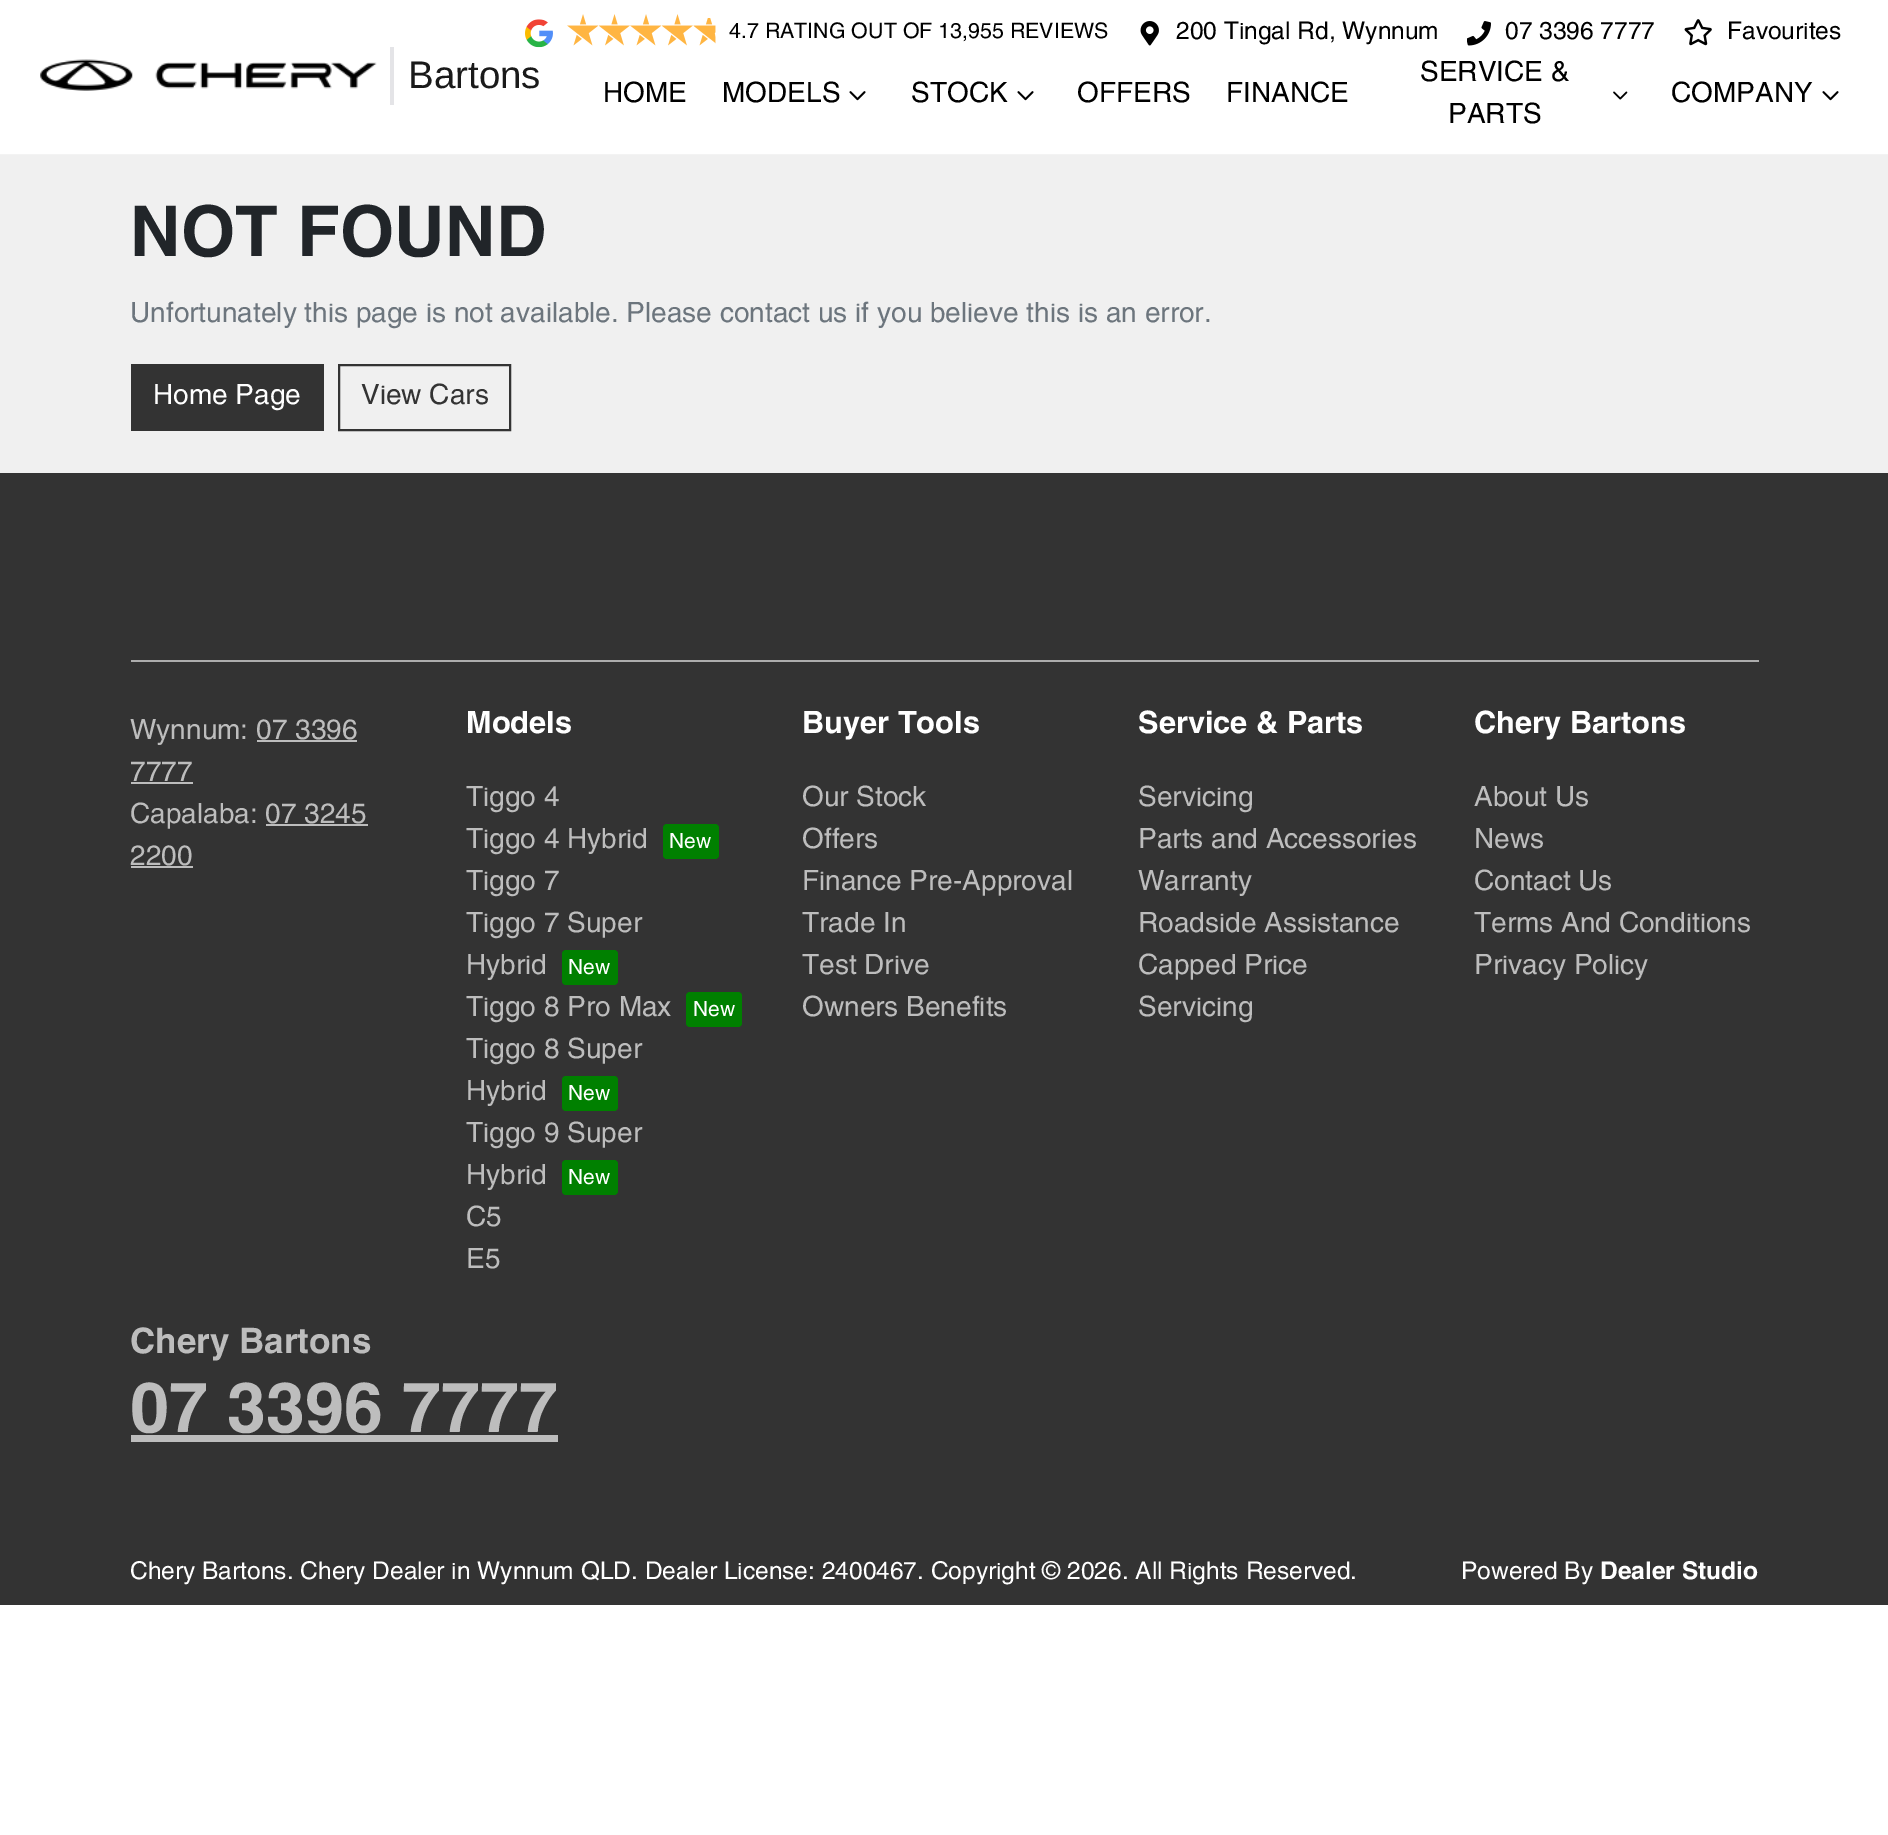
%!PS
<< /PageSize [1888 1835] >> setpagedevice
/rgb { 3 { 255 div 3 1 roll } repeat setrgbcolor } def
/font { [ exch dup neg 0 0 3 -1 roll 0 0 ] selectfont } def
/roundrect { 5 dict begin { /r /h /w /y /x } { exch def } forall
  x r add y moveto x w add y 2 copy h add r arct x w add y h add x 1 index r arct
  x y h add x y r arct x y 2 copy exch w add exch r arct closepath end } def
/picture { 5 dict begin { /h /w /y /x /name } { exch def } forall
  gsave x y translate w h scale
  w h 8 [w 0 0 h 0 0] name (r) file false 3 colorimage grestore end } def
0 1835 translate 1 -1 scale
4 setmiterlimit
255 255 255 rgb
0 0 1888 1835 rectfill
(img/1.rgb) 525 19 28 29 picture
(img/2.rgb) 567 14 32 32 picture
(img/3.rgb) 599 14 31 32 picture
(img/2.rgb) 630 14 32 32 picture
(img/3.rgb) 662 14 31 32 picture
(img/4.rgb) 693 18 23 28 picture
(img/5.rgb) 1140 21 19 25 picture
(img/6.rgb) 1467 21 24 25 picture
(img/7.rgb) 1684 19 28 27 picture
(img/8.rgb) 40 59 337 32 picture
228 228 231 rgb
390 47 4 58 rectfill
(img/9.rgb) 849 91 17 10 picture
(img/9.rgb) 1017 91 17 10 picture
(img/10.rgb) 1613 91 15 9 picture
(img/9.rgb) 1822 91 17 10 picture
[
  [0 155 1888 318 240 240 240]
  [0 154 1888 1 243 243 243]
  [131 364 193 67 51 51 51]
] { aload pop rgb rectfill } forall
2 setlinewidth
339 365 171 65 rectstroke
[
  [0 473 1888 1132 51 51 51]
  [131 660 1628 2 173 173 173]
  [257 740 100 2 189 189 189]
  [131 782 62 2 189 189 189]
  [266 824 102 2 189 189 189]
  [131 866 62 2 189 189 189]
] { aload pop rgb rectfill } forall
0 128 0 rgb
663 824 56 35 4 roundrect fill
562 950 56 35 4 roundrect fill
686 992 56 35 4 roundrect fill
562 1076 56 35 4 roundrect fill
562 1160 56 35 4 roundrect fill
189 189 189 rgb
131 1435 427 7 rectfill
/Helvetica-Medium 21.4 font
0 0 0 rgb
729 38 moveto (4.7 RATING OUT OF 13,955 REVIEWS) show
/Helvetica-Medium 24.5 font
[
  [(200 Tingal Rd, Wynnum) 1176 39]
  [(07 3396 7777) 1505 39]
  [(Favourites) 1727 39]
] { aload pop moveto show } forall
/LiberationSans-Regular 38.5 font
26 26 26 rgb
408 88 moveto (Bartons) show
/Helvetica-Medium 28 font
0 0 0 rgb
[
  [(HOME) 603 102]
  [(MODELS) 722 102]
  [(STOCK) 911 102]
  [(OFFERS) 1077 102]
  [(FINANCE) 1226 102]
  [(SERVICE &) 1420 81]
  [(PARTS) 1448 123]
  [(COMPANY) 1671 102]
] { aload pop moveto show } forall
/Helvetica-Bold 70 font
33 37 41 rgb
130 256 moveto (NOT FOUND) show
/Helvetica-Medium 28 font
108 117 125 rgb
130 322 moveto (Unfortunately this page is not available. Please contact us if you believe this is an error.) show
255 255 255 rgb
153 404 moveto (Home Page) show
51 51 51 rgb
361 404 moveto (View Cars) show
189 189 189 rgb
[
  [(Wynnum: 07 3396) 130 739]
  [(7777) 130 781]
  [(Capalaba: 07 3245) 130 823]
  [(2200) 130 865]
] { aload pop moveto show } forall
/Helvetica-Bold 30.75 font
255 255 255 rgb
466 733 moveto (Models) show
/Helvetica-Medium 28 font
189 189 189 rgb
466 806 moveto (Tiggo 4) show
466 848 moveto (Tiggo 4 Hybrid) show
/Helvetica-Medium 21 font
255 255 255 rgb
669 848 moveto (New) show
/Helvetica-Medium 28 font
189 189 189 rgb
[
  [(Tiggo 7) 466 890]
  [(Tiggo 7 Super) 466 932]
  [(Hybrid) 466 974]
] { aload pop moveto show } forall
/Helvetica-Medium 21 font
255 255 255 rgb
568 974 moveto (New) show
/Helvetica-Medium 28 font
189 189 189 rgb
466 1016 moveto (Tiggo 8 Pro Max) show
/Helvetica-Medium 21 font
255 255 255 rgb
693 1016 moveto (New) show
/Helvetica-Medium 28 font
189 189 189 rgb
466 1058 moveto (Tiggo 8 Super) show
466 1100 moveto (Hybrid) show
/Helvetica-Medium 21 font
255 255 255 rgb
568 1100 moveto (New) show
/Helvetica-Medium 28 font
189 189 189 rgb
466 1142 moveto (Tiggo 9 Super) show
466 1184 moveto (Hybrid) show
/Helvetica-Medium 21 font
255 255 255 rgb
568 1184 moveto (New) show
/Helvetica-Medium 28 font
189 189 189 rgb
466 1226 moveto (C5) show
466 1268 moveto (E5) show
/Helvetica-Bold 30.75 font
255 255 255 rgb
802 733 moveto (Buyer Tools) show
/Helvetica-Medium 28 font
189 189 189 rgb
[
  [(Our Stock) 802 806]
  [(Offers) 802 848]
  [(Finance Pre-Approval) 802 890]
  [(Trade In) 802 932]
  [(Test Drive) 802 974]
  [(Owners Benefits) 802 1016]
] { aload pop moveto show } forall
/Helvetica-Bold 30.75 font
255 255 255 rgb
1138 733 moveto (Service & Parts) show
/Helvetica-Medium 28 font
189 189 189 rgb
[
  [(Servicing) 1138 806]
  [(Parts and Accessories) 1138 848]
  [(Warranty) 1138 890]
  [(Roadside Assistance) 1138 932]
  [(Capped Price) 1138 974]
  [(Servicing) 1138 1016]
] { aload pop moveto show } forall
/Helvetica-Bold 30.75 font
255 255 255 rgb
1474 733 moveto (Chery Bartons) show
/Helvetica-Medium 28 font
189 189 189 rgb
[
  [(About Us) 1474 806]
  [(News) 1474 848]
  [(Contact Us) 1474 890]
  [(Terms And Conditions) 1474 932]
  [(Privacy Policy) 1474 974]
] { aload pop moveto show } forall
/Helvetica-Bold 35 font
130 1353 moveto (Chery Bartons) show
/Helvetica-Bold 70 font
130 1432 moveto (07 3396 7777) show
/Helvetica-Medium 24.5 font
255 255 255 rgb
130 1579 moveto (Chery Bartons. Chery Dealer in Wynnum QLD. Dealer License: 2400467. Copyright © 2026. All Rights Reserved.) show
1461 1579 moveto (Powered By) show
/Helvetica-Bold 24.5 font
1600 1579 moveto (Dealer Studio) show
showpage
